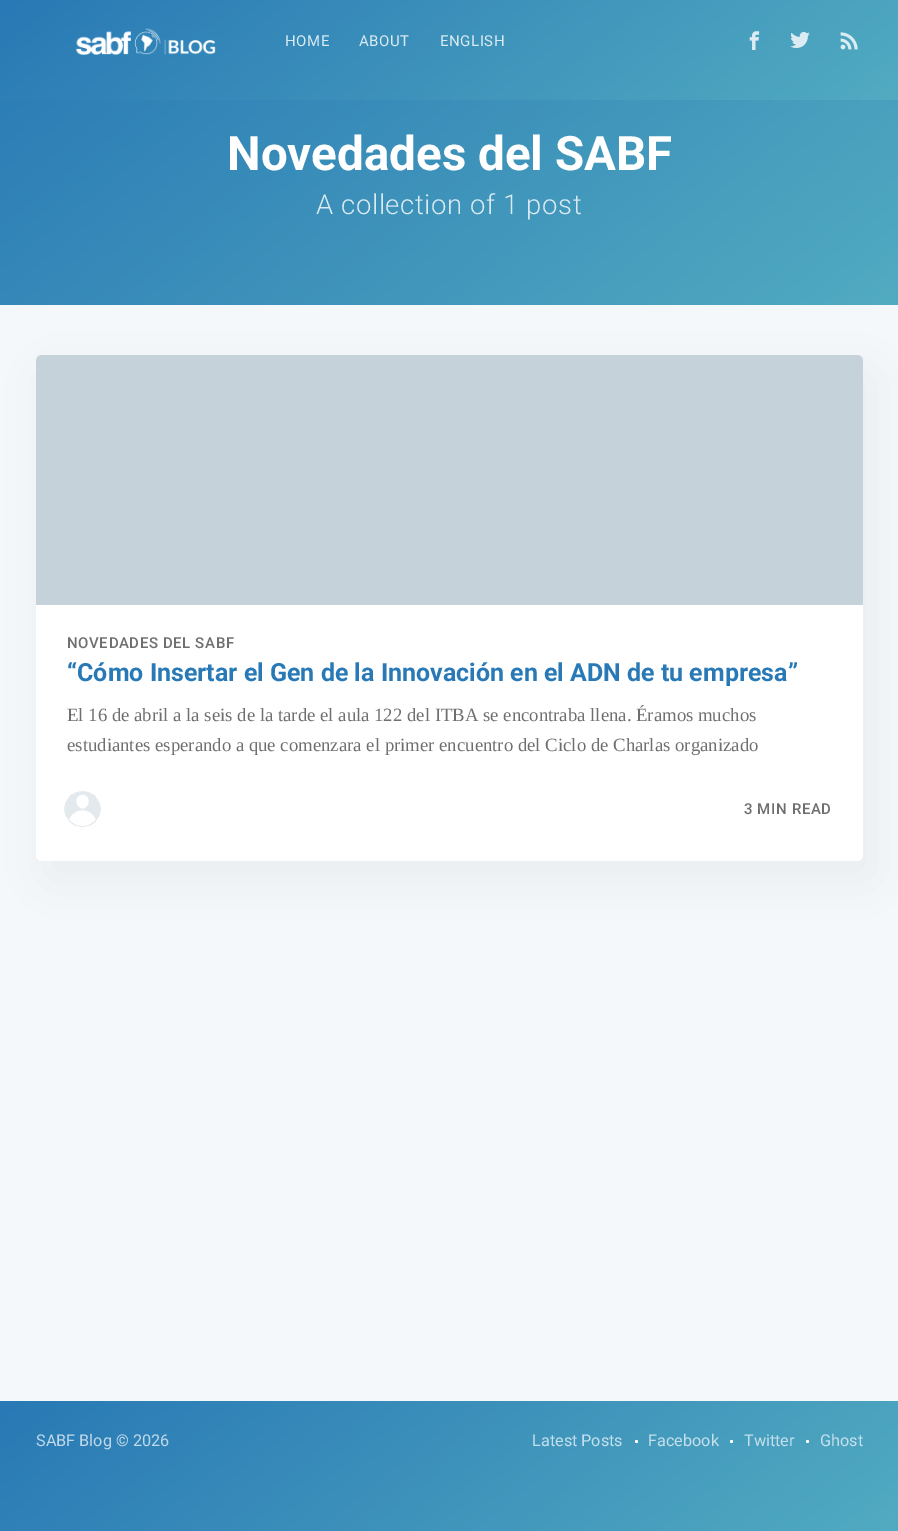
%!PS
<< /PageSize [898 1531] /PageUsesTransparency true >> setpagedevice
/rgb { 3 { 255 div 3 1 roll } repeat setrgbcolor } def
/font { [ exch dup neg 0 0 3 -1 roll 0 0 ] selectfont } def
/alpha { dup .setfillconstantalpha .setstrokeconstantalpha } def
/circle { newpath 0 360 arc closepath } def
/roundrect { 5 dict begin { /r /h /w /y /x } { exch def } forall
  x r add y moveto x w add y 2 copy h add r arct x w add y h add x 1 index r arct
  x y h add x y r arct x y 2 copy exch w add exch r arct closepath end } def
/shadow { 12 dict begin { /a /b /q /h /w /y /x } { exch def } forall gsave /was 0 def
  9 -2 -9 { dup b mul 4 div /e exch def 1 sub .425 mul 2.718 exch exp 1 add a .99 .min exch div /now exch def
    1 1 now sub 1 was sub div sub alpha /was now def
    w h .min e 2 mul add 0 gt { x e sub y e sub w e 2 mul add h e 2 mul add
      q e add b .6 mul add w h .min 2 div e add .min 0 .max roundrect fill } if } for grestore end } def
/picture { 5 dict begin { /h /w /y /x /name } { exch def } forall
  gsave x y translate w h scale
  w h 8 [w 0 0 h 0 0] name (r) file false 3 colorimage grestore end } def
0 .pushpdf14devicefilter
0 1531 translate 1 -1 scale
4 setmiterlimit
244 248 251 rgb
0 0 898 1531 rectfill
gsave 0 0 moveto 898 0 lineto 898 100 lineto 0 100 lineto closepath clip newpath
<< /ShadingType 2 /ColorSpace /DeviceRGB /Coords [247 -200 834 525] /Extend [true true] /Function << /FunctionType 2 /Domain [0 1] /C0 [0.157 0.475 0.71] /C1 [0.392 0.757 0.776] /N 1 >> >> shfill grestore
(img/1.rgb) 75 28 141 27 picture
(img/2.rgb) 749 31 11 19 picture
(img/3.rgb) 790 32 20 16 picture
(img/4.rgb) 840 32 18 18 picture
gsave 0 100 moveto 898 100 lineto 898 305 lineto 0 305 lineto closepath clip newpath
<< /ShadingType 2 /ColorSpace /DeviceRGB /Coords [197 -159 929 745] /Extend [true true] /Function << /FunctionType 2 /Domain [0 1] /C0 [0.157 0.475 0.71] /C1 [0.392 0.757 0.776] /N 1 >> >> shfill grestore
39 44 49 rgb
46 373 827 506 6 24 0.06 shadow
255 255 255 rgb
36 355 827 506 6 roundrect fill
197 210 217 rgb
42 355 moveto 857 355 lineto 860.5 355 863 357.5 863 361 curveto 863 605 lineto 36 605 lineto 36 361 lineto 36 357.5 38.5 355 42 355 curveto closepath fill
227 233 237 rgb
62.5 789.5 40 39 19.5 roundrect gsave fill grestore
255 255 255 rgb
3 setlinewidth
stroke
(img/5.rgb) 69 794 27 32 picture
gsave 0 1401 moveto 898 1401 lineto 898 1531 lineto 0 1531 lineto closepath clip newpath
<< /ShadingType 2 /ColorSpace /DeviceRGB /Coords [240 1207 848 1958] /Extend [true true] /Function << /FunctionType 2 /Domain [0 1] /C0 [0.157 0.475 0.71] /C1 [0.392 0.757 0.776] /N 1 >> >> shfill grestore
636.5 1441.5 1.5 circle fill
731.5 1441.5 1.5 circle fill
807.5 1441.5 1.5 circle fill
/Roboto-Regular 15 font
217 234 241 rgb
285 46 moveto 0.5 0 (HOME) ashow
359 46 moveto 0.5 0 (ABOUT) ashow
440 46 moveto 0.5 0 (ENGLISH) ashow
/Roboto-Bold 47.5 font
255 255 255 rgb
227 170 moveto (Novedades del SABF) show
/Roboto-Light 27.5 font
217 234 241 rgb
316 214 moveto 0.6 0 (A collection of 1 post) ashow
/Roboto-Medium 15 font
111 111 111 rgb
67 648 moveto 0.6 0 (NOVEDADES DEL SABF) ashow
/Roboto-Bold 25 font
40 121 181 rgb
67 681 moveto (“Cómo Insertar el Gen de la Innovación en el ADN de tu empresa”) show
/LiberationSerif-Regular 18.75 font
111 111 111 rgb
67 721 moveto (El 16 de abril a la seis de la tarde el aula 122 del ITBA se encontraba llena. Éramos muchos) show
67 751 moveto (estudiantes esperando a que comenzara el primer encuentro del Ciclo de Charlas organizado) show
/Roboto-Medium 15 font
744 814 moveto 0.6 0 (3 MIN READ) ashow
/Roboto-Regular 16.25 font
192 217 233 rgb
36 1446 moveto (SABF Blog) show
116 1446 moveto (© 2026) show
198 224 235 rgb
[
  [(Latest Posts) 532 1446]
  [(Facebook) 648 1446]
  [(Twitter) 744 1446]
  [(Ghost) 820 1446]
] { aload pop moveto show } forall
.poppdf14devicefilter showpage
